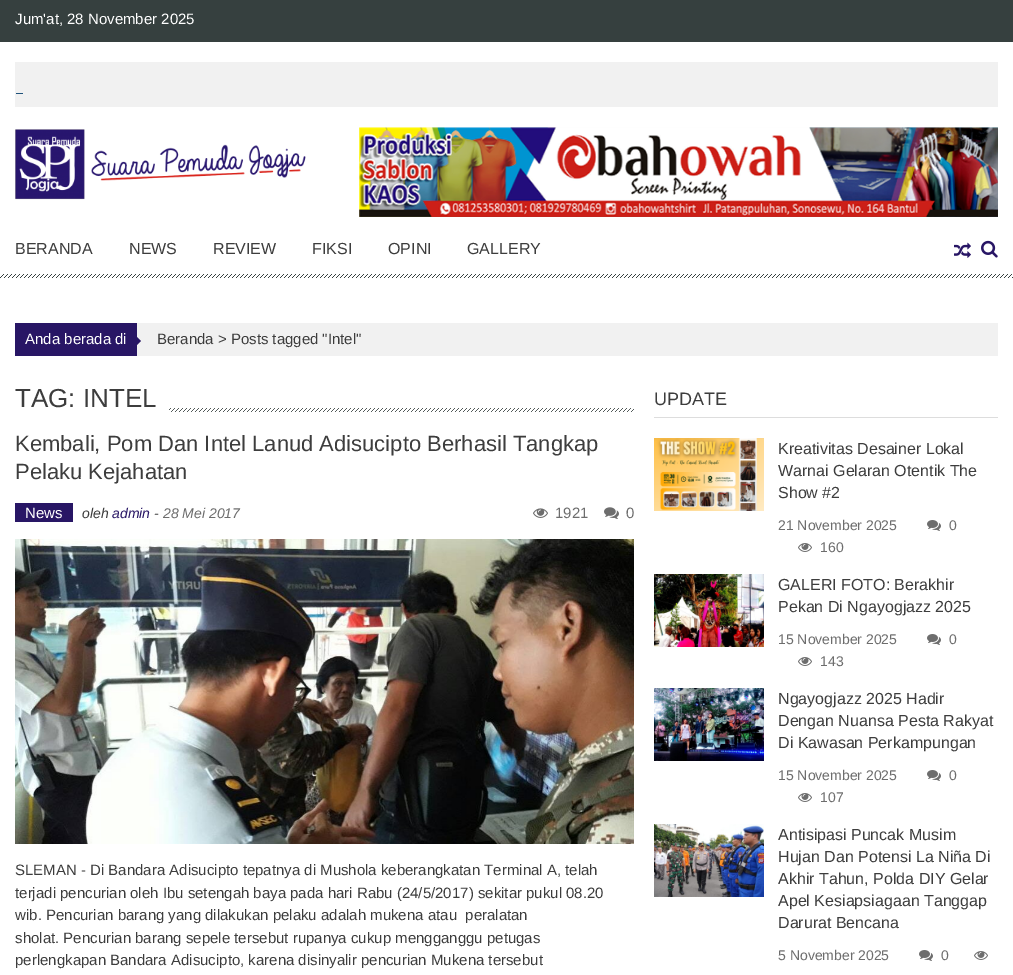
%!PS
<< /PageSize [1013 975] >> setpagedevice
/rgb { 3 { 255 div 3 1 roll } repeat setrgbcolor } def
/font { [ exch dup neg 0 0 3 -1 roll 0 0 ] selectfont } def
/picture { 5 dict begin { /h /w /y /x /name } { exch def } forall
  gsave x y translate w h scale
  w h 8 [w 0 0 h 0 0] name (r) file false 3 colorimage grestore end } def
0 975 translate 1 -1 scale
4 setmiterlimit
255 255 255 rgb
0 0 1013 975 rectfill
[
  [0 0 1013 42 54 64 63]
  [15 62 983 45 241 241 241]
  [16 93 7 1 31 82 123]
] { aload pop rgb rectfill } forall
(img/1.rgb) 15 129 291 71 picture
(img/2.rgb) 359 127 639 90 picture
(img/3.rgb) 0 274 1013 4 picture
(img/4.rgb) 954 242 17 16 picture
(img/5.rgb) 981 240 17 18 picture
241 241 241 rgb
137 323 861 33 rectfill
40 22 101 rgb
15 323 122 33 rectfill
136 346 moveto 136 336 lineto 141 341 lineto closepath fill
(img/6.rgb) 169 408 465 4 picture
15 503 58 19 rectfill
(img/7.rgb) 533 508 15 10 picture
(img/8.rgb) 604 507 15 12 picture
(img/9.rgb) 15 539 619 305 picture
221 221 221 rgb
654 417 344 1 rectfill
(img/10.rgb) 654 438 110 73 picture
(img/11.rgb) 927 520 14 11 picture
(img/12.rgb) 798 543 14 9 picture
(img/13.rgb) 654 574 110 73 picture
(img/11.rgb) 927 634 14 11 picture
(img/12.rgb) 798 657 14 9 picture
(img/14.rgb) 654 688 110 73 picture
(img/11.rgb) 927 770 14 11 picture
(img/12.rgb) 798 793 14 9 picture
(img/15.rgb) 654 824 110 73 picture
(img/11.rgb) 919 950 14 11 picture
(img/12.rgb) 974 951 14 9 picture
/LiberationSans-Regular 15 font
255 255 255 rgb
15 24 moveto (Jum'at, 28 November 2025) show
/LiberationSans-Regular 16 font
61 61 61 rgb
[
  [(BERANDA) 15 254]
  [(NEWS) 129 254]
  [(REVIEW) 213 254]
  [(FIKSI) 312 254]
  [(OPINI) 388 254]
  [(GALLERY) 467 254]
] { aload pop moveto show } forall
/LiberationSans-Regular 15 font
255 255 255 rgb
25 344 moveto (Anda berada di) show
61 61 61 rgb
157 344 moveto (Beranda > Posts tagged "Intel") show
/LiberationSans-Regular 26 font
15 407 moveto (TAG: INTEL) show
/LiberationSans-Regular 22 font
15 451 moveto (Kembali, Pom Dan Intel Lanud Adisucipto Berhasil Tangkap) show
15 479 moveto (Pelaku Kejahatan) show
/LiberationSans-Regular 15 font
255 255 255 rgb
25 518 moveto (News) show
/LiberationSans-Italic 14 font
61 61 61 rgb
82 518 moveto (oleh) show
40 22 101 rgb
112 518 moveto (admin) show
61 61 61 rgb
154 518 moveto (-) show
109 109 109 rgb
163 518 moveto (28 Mei 2017) show
/LiberationSans-Regular 15 font
555 518 moveto (1921) show
626 518 moveto (0) show
61 61 61 rgb
[
  [(SLEMAN - Di Bandara Adisucipto tepatnya di Mushola keberangkatan Terminal A, telah) 15 875]
  [(terjadi pencurian oleh Ibu setengah baya pada hari Rabu \(24/5/2017\) sekitar pukul 08.20) 15 898]
  [(wib. Pencurian barang yang dilakukan pelaku adalah mukena atau  peralatan) 15 920]
  [(sholat. Pencurian barang sepele tersebut rupanya cukup mengganggu petugas) 15 943]
  [(perlengkapan Bandara Adisucipto, karena disinyalir pencurian Mukena tersebut) 15 965]
] { aload pop moveto show } forall
/LiberationSans-Regular 18 font
654 405 moveto (UPDATE) show
/LiberationSans-Regular 16 font
[
  [(Kreativitas Desainer Lokal) 778 454]
  [(Warnai Gelaran Otentik The) 778 476]
  [(Show #2) 778 498]
] { aload pop moveto show } forall
/LiberationSans-Regular 14 font
109 109 109 rgb
[
  [(21 November 2025) 778 530]
  [(0) 949 530]
  [(160) 820 552]
] { aload pop moveto show } forall
/LiberationSans-Regular 16 font
61 61 61 rgb
778 590 moveto (GALERI FOTO: Berakhir) show
778 612 moveto (Pekan Di Ngayogjazz 2025) show
/LiberationSans-Regular 14 font
109 109 109 rgb
[
  [(15 November 2025) 778 644]
  [(0) 949 644]
  [(143) 820 666]
] { aload pop moveto show } forall
/LiberationSans-Regular 16 font
61 61 61 rgb
[
  [(Ngayogjazz 2025 Hadir) 778 704]
  [(Dengan Nuansa Pesta Rakyat) 778 726]
  [(Di Kawasan Perkampungan) 778 748]
] { aload pop moveto show } forall
/LiberationSans-Regular 14 font
109 109 109 rgb
[
  [(15 November 2025) 778 780]
  [(0) 949 780]
  [(107) 820 802]
] { aload pop moveto show } forall
/LiberationSans-Regular 16 font
61 61 61 rgb
[
  [(Antisipasi Puncak Musim) 778 840]
  [(Hujan Dan Potensi La Niña Di) 778 862]
  [(Akhir Tahun, Polda DIY Gelar) 778 884]
  [(Apel Kesiapsiagaan Tanggap) 778 906]
  [(Darurat Bencana) 778 928]
] { aload pop moveto show } forall
/LiberationSans-Regular 14 font
109 109 109 rgb
778 960 moveto (5 November 2025) show
941 960 moveto (0) show
showpage
